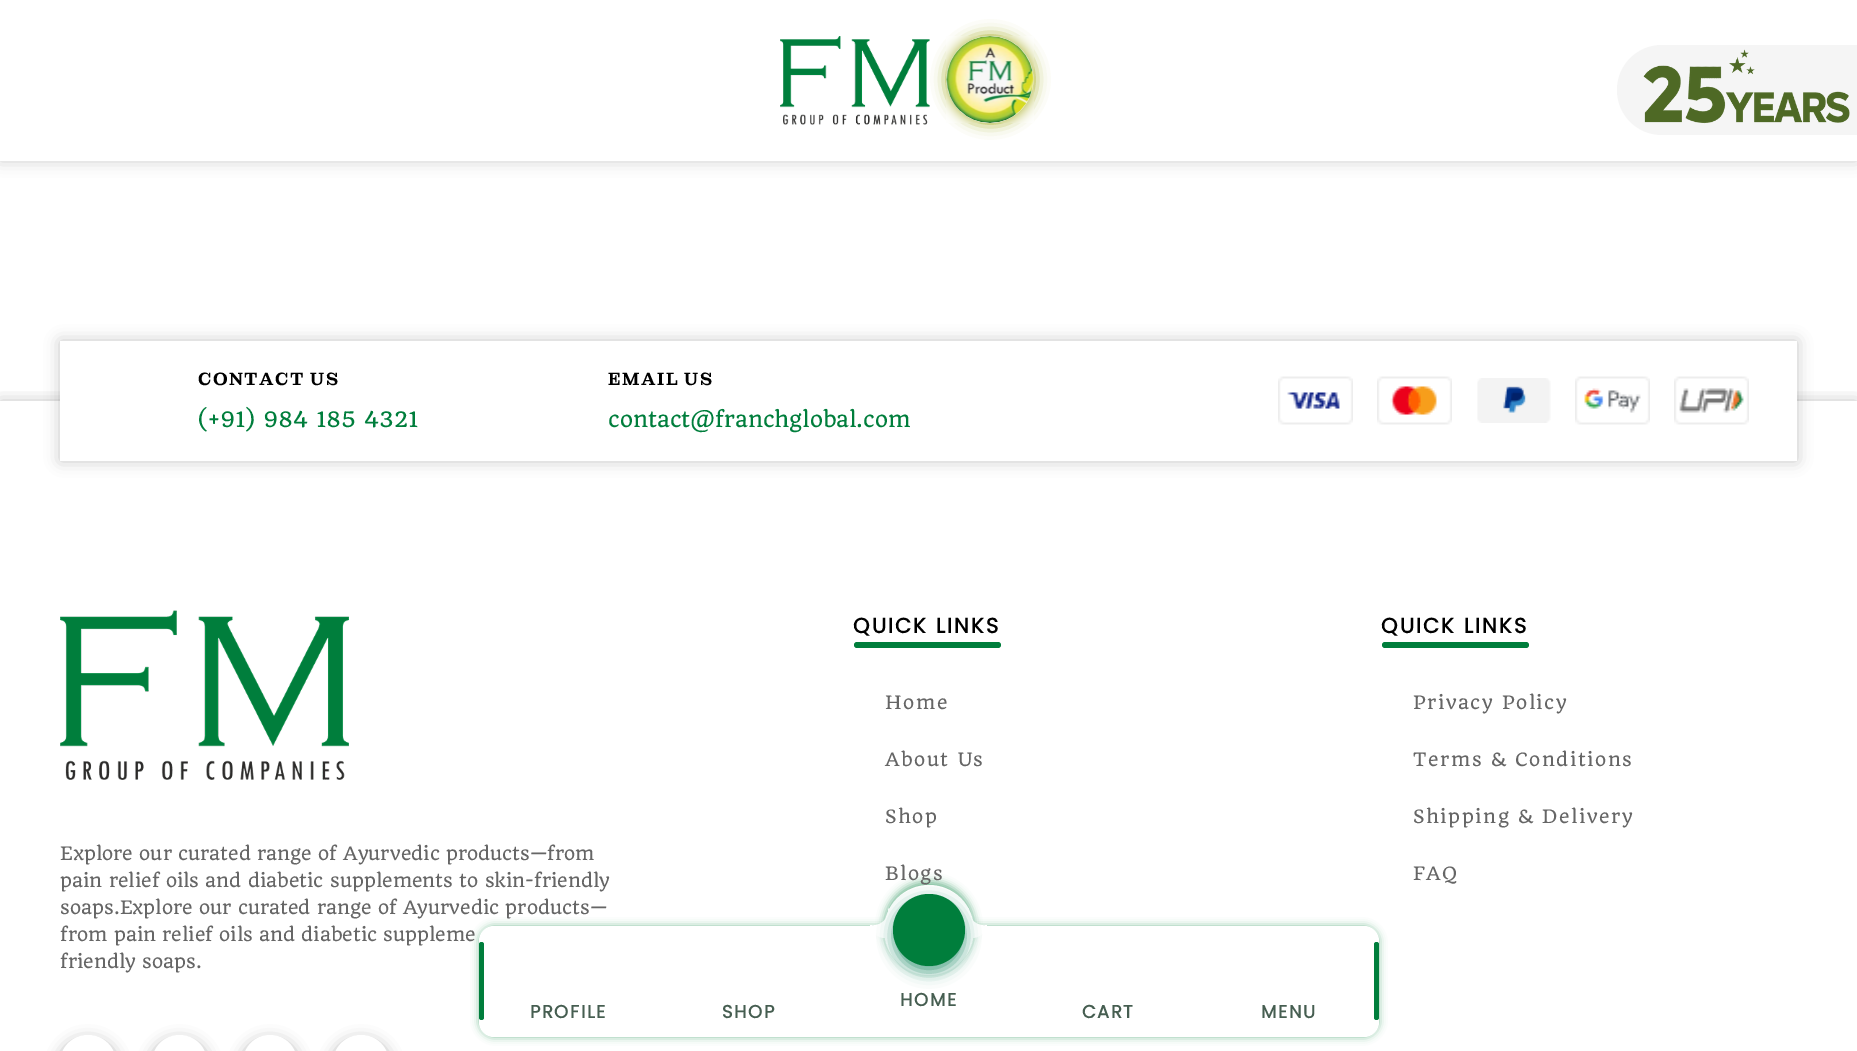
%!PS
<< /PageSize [1857 1051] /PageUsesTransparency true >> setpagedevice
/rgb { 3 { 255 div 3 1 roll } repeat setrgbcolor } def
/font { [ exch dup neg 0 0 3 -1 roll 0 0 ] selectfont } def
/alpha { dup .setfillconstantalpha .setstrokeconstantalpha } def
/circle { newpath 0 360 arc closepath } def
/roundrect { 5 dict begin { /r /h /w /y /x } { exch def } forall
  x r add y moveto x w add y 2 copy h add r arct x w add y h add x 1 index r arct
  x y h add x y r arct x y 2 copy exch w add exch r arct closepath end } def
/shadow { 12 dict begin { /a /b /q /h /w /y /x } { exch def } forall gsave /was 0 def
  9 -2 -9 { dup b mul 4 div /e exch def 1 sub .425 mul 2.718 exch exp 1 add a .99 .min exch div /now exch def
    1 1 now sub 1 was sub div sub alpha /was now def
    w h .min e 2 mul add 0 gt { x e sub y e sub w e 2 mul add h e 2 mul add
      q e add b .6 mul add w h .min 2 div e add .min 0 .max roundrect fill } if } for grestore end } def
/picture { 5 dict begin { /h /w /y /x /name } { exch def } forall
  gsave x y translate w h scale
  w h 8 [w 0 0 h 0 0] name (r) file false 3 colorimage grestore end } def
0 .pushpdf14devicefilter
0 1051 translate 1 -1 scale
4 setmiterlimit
255 255 255 rgb
0 0 1857 1051 rectfill
0 0 0 rgb
0 0 1857 161 0 7.5 0.19 shadow
255 255 255 rgb
0 0 1857 161 rectfill
245 245 245 rgb
1662 45 moveto 1857 45 lineto 1857 135 lineto 1662 135 lineto 1637 135 1617 115 1617 90 curveto 1617 65 1637 45 1662 45 curveto closepath fill
(img/1.rgb) 1643 49 207 75 picture
gsave
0 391 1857 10 rectclip
0 0 0 rgb
0 401 1857 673 0 7.5 0.22 shadow
grestore
0 0 0 rgb
60 341 1737 120 0 7.5 0.22 shadow
255 255 255 rgb
60 341 1737 120 rectfill
(img/2.rgb) 1278 376 75 49 picture
(img/3.rgb) 1377 376 75 49 picture
(img/4.rgb) 1477 378 74 45 picture
(img/5.rgb) 1575 376 75 49 picture
(img/6.rgb) 1674 376 75 49 picture
0 126 60 rgb
854 642 147 6 3 roundrect fill
1382 642 147 6 3 roundrect fill
(img/7.rgb) 60 610 289 170 picture
0 0 0 rgb
60 1041 56 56 28 7.5 0.35 shadow
255 255 255 rgb
60 1035 56 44 28 roundrect fill
0 0 0 rgb
152 1041 55 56 27.5 7.5 0.35 shadow
255 255 255 rgb
152 1035 55 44 27.5 roundrect fill
0 0 0 rgb
243 1041 54 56 27 7.5 0.35 shadow
255 255 255 rgb
243 1035 54 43 27 roundrect fill
0 0 0 rgb
333 1041 56 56 28 7.5 0.35 shadow
255 255 255 rgb
333 1035 56 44 28 roundrect fill
(img/8.rgb) 780 36 150 89 picture
161 166 18 rgb
947 36 87 87 43.5 7.5 1 shadow
(img/9.rgb) 946 36 88 87 picture
128 191 157 rgb
479 926 900 111 15 4 1 shadow
255 255 255 rgb
479 926 900 111 15 roundrect fill
0 126 60 rgb
479 942 5 78 2.5 roundrect fill
128 191 157 rgb
884 881 90 90 45 4 1 shadow
255 255 255 rgb
929 930 45 circle fill
870 925 moveto 871 932.5 877.5 938 885 938 curveto 893.5 938 900 931.5 900 923 curveto 900 915.5 895 909.5 888 908.5 curveto 889.5 918.5 880 927 870 925 curveto closepath fill
969 908.5 moveto 962 909.5 957 915.5 957 923 curveto 957 931.5 963.5 938 972 938 curveto 979.5 938 986 932.5 987 925 curveto 977 927 967.5 918.5 969 908.5 curveto closepath fill
80 164 137 rgb
893 900 72 72 36 7.5 1 shadow
0 126 60 rgb
929 930 36 circle fill
1374 942 5 78 2.5 roundrect fill
/MontaguSlab-SemiBold 18 font
0 0 0 rgb
198 385 moveto 1.5 0 (CONTACT US) ashow
/Quando-Regular 21 font
0 126 60 rgb
198 427 moveto (\(+91\) 984 185 4321) show
/MontaguSlab-SemiBold 18 font
0 0 0 rgb
608 385 moveto 1.5 0 (EMAIL US) ashow
/Quando-Regular 21 font
0 126 60 rgb
608 427 moveto (contact@franchglobal.com) show
/Poppins-Bold 21 font
0 0 0 rgb
853 633 moveto 2.1 0 (QUICK LINKS) ashow
/Quando-Regular 18 font
102 102 102 rgb
885 709 moveto 1.5 0 (Home) ashow
885 766 moveto 1.5 0 (About Us) ashow
885 823 moveto 1.5 0 (Shop) ashow
885 880 moveto 1.5 0 (Blogs) ashow
/Poppins-Bold 21 font
0 0 0 rgb
1381 633 moveto 2.1 0 (QUICK LINKS) ashow
/Quando-Regular 18 font
102 102 102 rgb
1413 709 moveto 1.5 0 (Privacy Policy) ashow
1413 766 moveto 1.5 0 (Terms & Conditions) ashow
1413 823 moveto 1.5 0 (Shipping & Delivery) ashow
1413 880 moveto 1.5 0 (FAQ) ashow
[
  [(Explore our curated range of Ayurvedic products—from) 60 860]
  [(pain relief oils and diabetic supplements to skin-friendly) 60 887]
  [(soaps.Explore our curated range of Ayurvedic products—) 60 914]
  [(from pain relief oils and diabetic suppleme) 60 941]
  [(friendly soaps.) 60 968]
] { aload pop moveto show } forall
/Poppins-Bold 18 font
70 94 81 rgb
900 1006 moveto 1.5 0 (HOME) ashow
530 1018 moveto 1.5 0 (PROFILE) ashow
722 1018 moveto 1.5 0 (SHOP) ashow
1082 1018 moveto 1.5 0 (CART) ashow
1261 1018 moveto 1.5 0 (MENU) ashow
.poppdf14devicefilter showpage
